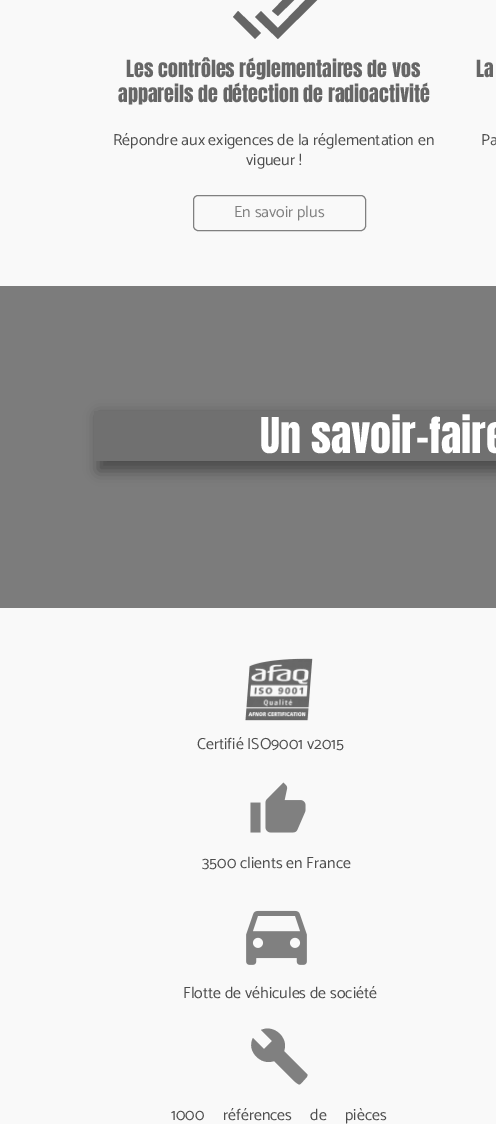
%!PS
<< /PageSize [496 1124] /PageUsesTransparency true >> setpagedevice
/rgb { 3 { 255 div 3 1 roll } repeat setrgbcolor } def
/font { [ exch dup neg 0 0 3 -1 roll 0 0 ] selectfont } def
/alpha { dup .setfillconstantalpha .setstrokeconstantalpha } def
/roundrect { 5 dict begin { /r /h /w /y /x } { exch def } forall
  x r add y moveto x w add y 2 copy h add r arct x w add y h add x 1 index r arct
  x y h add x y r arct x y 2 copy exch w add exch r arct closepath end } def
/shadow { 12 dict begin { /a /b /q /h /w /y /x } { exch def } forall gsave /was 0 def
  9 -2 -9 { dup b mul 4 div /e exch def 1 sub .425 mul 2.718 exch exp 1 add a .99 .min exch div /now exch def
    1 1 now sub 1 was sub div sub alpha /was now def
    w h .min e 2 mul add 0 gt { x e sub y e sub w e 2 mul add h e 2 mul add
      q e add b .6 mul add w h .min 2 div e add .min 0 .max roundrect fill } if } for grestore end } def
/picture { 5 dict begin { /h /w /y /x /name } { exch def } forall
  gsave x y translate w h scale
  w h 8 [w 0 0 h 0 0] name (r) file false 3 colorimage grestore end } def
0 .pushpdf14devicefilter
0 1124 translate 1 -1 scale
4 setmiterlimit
249 249 249 rgb
0 0 496 1124 rectfill
101 101 101 rgb
233 17 moveto 238 11 lineto 261 33 lineto 255 39 lineto closepath 320 -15 moveto 326 -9 lineto 278 39 lineto 255 17 lineto 261 11 lineto 278 28 lineto closepath 303 -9 moveto 278 16 lineto 272 11 lineto 297 -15 lineto closepath fill
128 128 128 rgb
193.5 195.5 172 35 4.5 roundrect stroke
124 124 124 rgb
0 286 496 322 rectfill
0 0 0 rgb
98 415 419 56 0 7 0.4 shadow
112 112 112 rgb
94 411 402 50 rectfill
(img/1.rgb) 245 658 68 63 picture
(img/2.rgb) 250 782 56 51 picture
(img/3.rgb) 246 910 61 55 picture
128 128 128 rgb
307 1074 moveto 308 1075 307 1077 306 1078 curveto 299 1085 301 1087 293 1080 curveto 274 1061 lineto 261 1066 246 1051 253 1038 curveto 264 1049 lineto 272 1041 lineto 261 1030 lineto 274 1024 289 1038 284 1051 curveto closepath fill
/Anton-Regular 20 font
102 102 102 rgb
126 77 moveto (Les contrôles réglementaires de vos) show
118 102 moveto (appareils de détection de radioactivité) show
/Catamaran-Regular 16 font
77 77 77 rgb
113 145 moveto (Répondre aux exigences de la réglementation en) show
246 165 moveto (vigueur !) show
/Anton-Regular 20 font
102 102 102 rgb
476 77 moveto (La) show
/Catamaran-Regular 16 font
77 77 77 rgb
481 145 moveto (Pa) show
128 128 128 rgb
234 217 moveto (En savoir plus) show
/Anton-Regular 42 font
255 255 255 rgb
260 453 moveto (Un savoir-faire) show
/Catamaran-Regular 16 font
77 77 77 rgb
[
  [(Certifié ISO9001 v2015) 197 749]
  [(3500 clients en France) 202 868]
  [(Flotte de véhicules de société) 183 998]
] { aload pop moveto show } forall
171 1120 moveto 14.5 0 32 (1000 références de pièces) widthshow
.poppdf14devicefilter showpage
